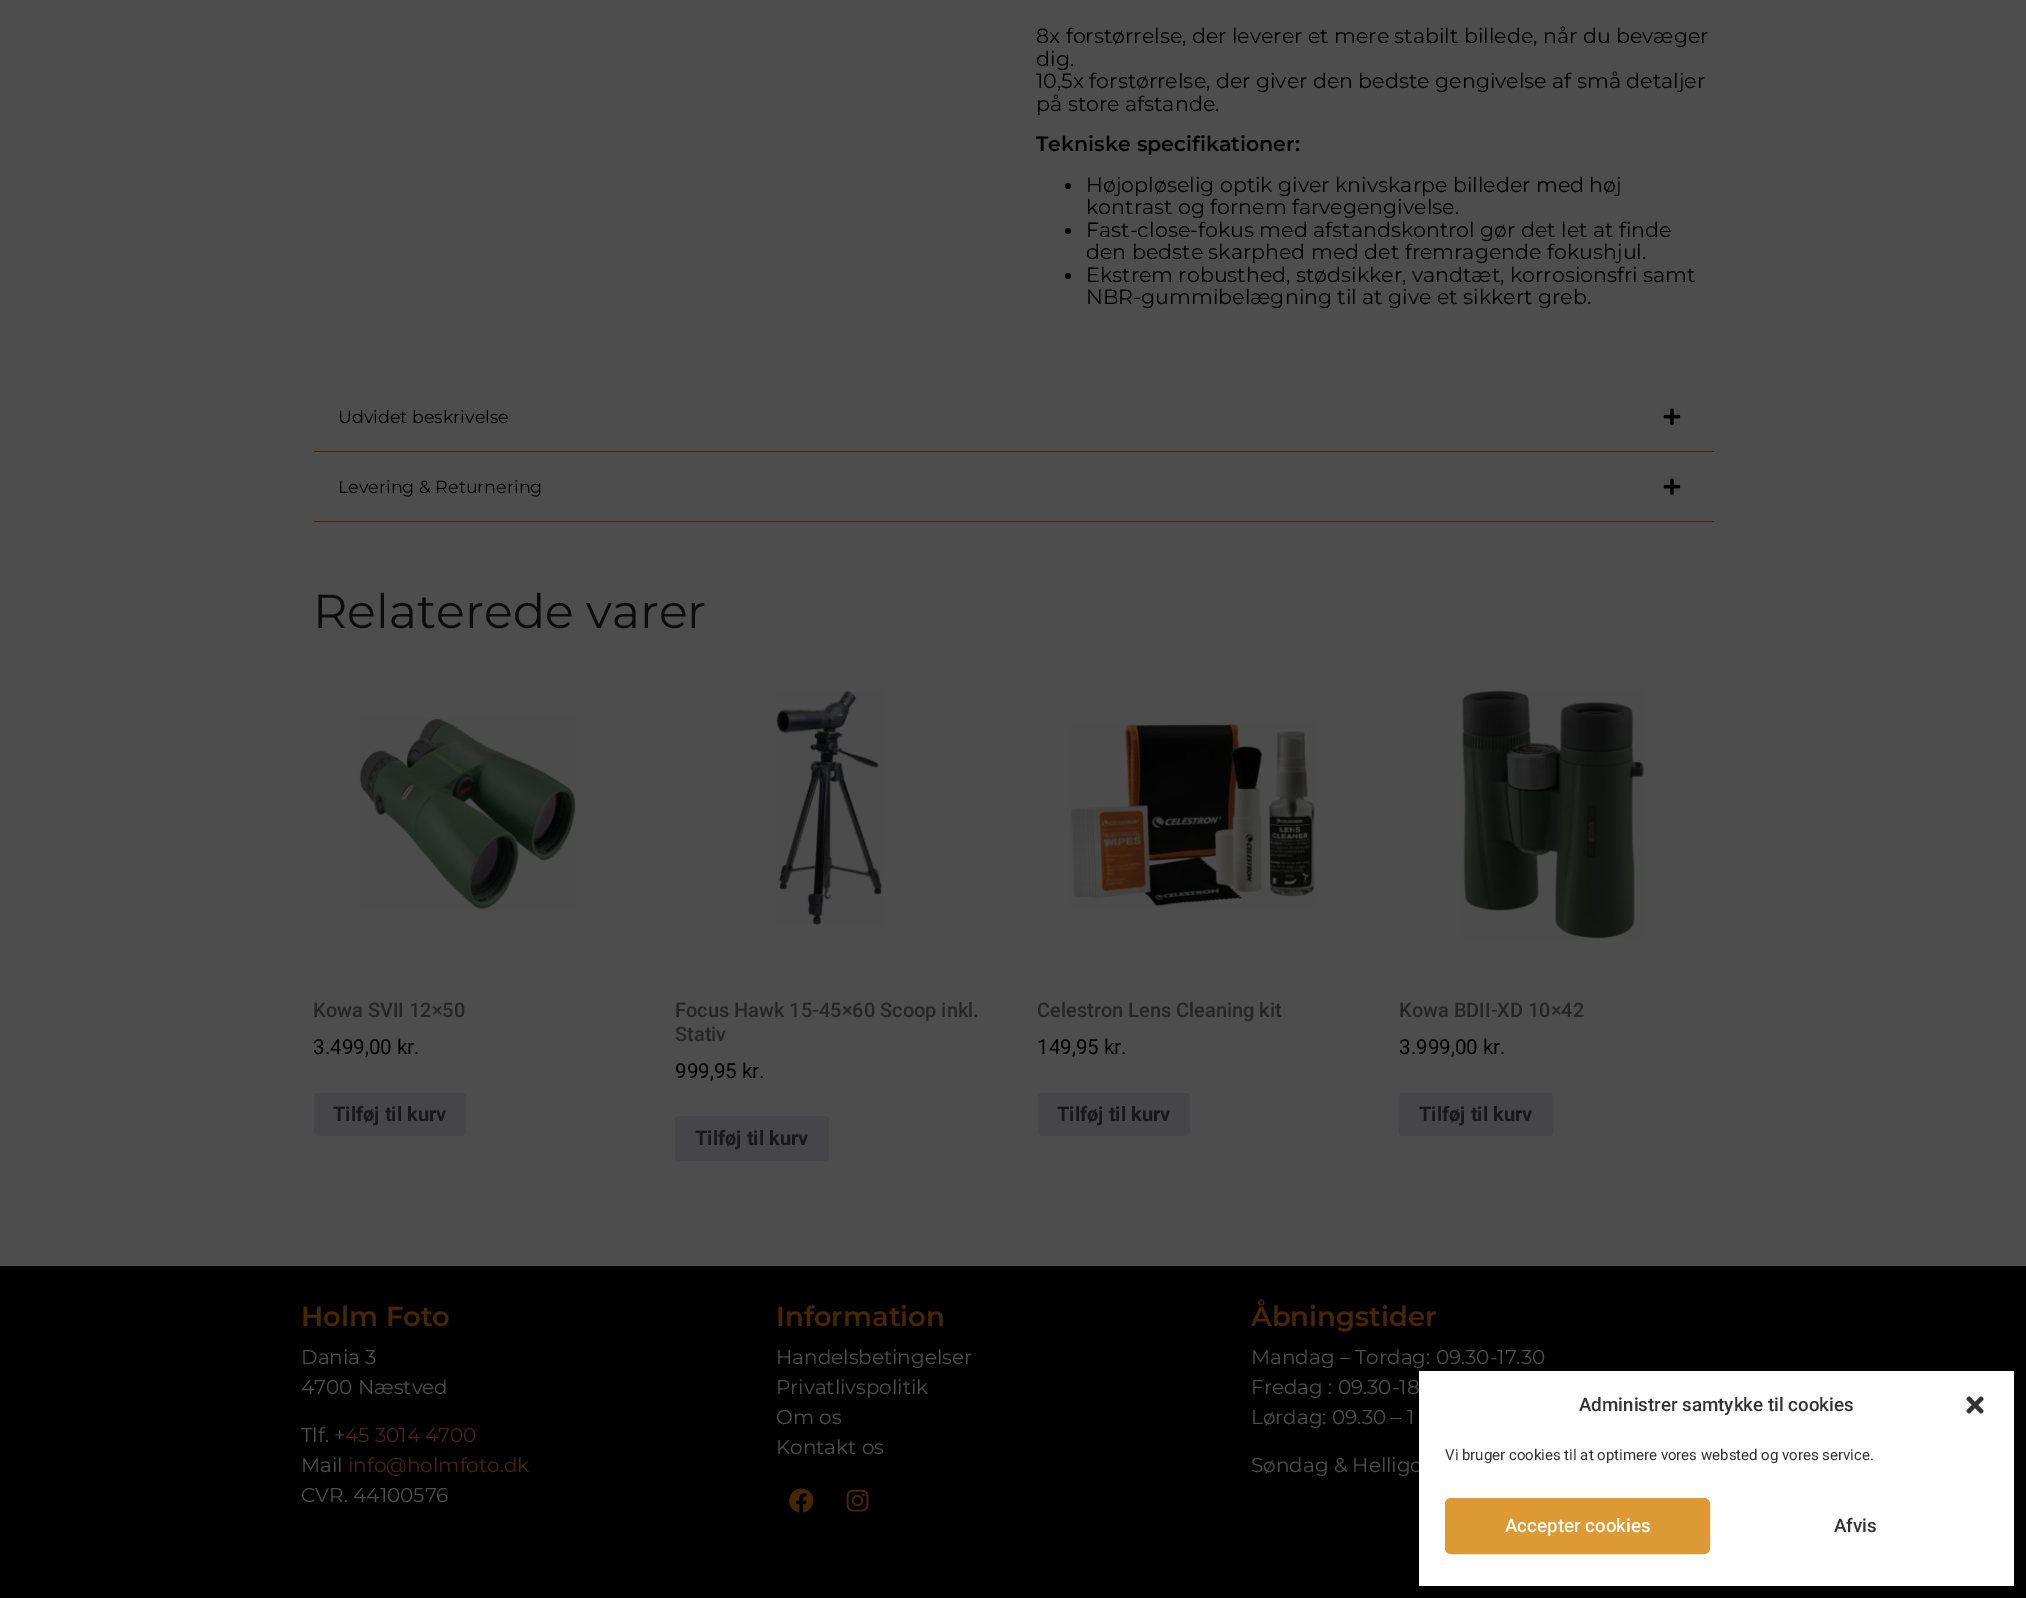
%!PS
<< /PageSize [2026 1598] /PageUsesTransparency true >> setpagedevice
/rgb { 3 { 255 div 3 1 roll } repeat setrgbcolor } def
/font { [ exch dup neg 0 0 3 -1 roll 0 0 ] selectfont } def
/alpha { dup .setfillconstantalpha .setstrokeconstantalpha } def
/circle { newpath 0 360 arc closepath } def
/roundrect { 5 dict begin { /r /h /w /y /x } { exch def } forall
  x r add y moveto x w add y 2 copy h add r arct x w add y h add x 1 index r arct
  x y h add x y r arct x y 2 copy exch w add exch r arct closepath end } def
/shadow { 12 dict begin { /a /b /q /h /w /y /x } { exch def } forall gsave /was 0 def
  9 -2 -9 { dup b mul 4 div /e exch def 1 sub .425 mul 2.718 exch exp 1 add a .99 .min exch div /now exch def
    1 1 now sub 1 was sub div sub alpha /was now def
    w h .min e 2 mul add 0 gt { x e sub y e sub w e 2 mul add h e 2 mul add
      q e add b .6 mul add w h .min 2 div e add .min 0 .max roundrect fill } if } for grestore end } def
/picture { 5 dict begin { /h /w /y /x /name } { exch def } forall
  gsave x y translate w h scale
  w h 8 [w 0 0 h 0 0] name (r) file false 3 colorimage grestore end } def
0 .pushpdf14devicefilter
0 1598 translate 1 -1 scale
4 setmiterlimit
77 77 77 rgb
0 0 2026 1598 rectfill
0 0 0 rgb
1068 186 3 circle fill
1068 231 3 circle fill
1068 276 3 circle fill
72 38 0 rgb
314 451 1400 1 rectfill
(img/1.rgb) 1663 408 18 17 picture
314 521 1400 1 rectfill
(img/1.rgb) 1663 478 18 17 picture
(img/2.rgb) 359 718 217 192 picture
70 69 71 rgb
314 1093 152 43 4 roundrect fill
(img/3.rgb) 776 691 107 234 picture
675 1116 154 45 4 roundrect fill
(img/4.rgb) 1070 723 245 184 picture
1038 1093 152 43 4 roundrect fill
(img/5.rgb) 1462 690 182 249 picture
1399 1093 154 43 4 roundrect fill
0 0 0 rgb
0 1266 2026 332 rectfill
(img/6.rgb) 789 1488 25 25 picture
(img/7.rgb) 846 1489 23 23 picture
1419 1379 595 215 0 4 0.23 shadow
/Montserrat-Regular 20.6 font
[
  [(8x forstørrelse, der leverer et mere stabilt billede, når du bevæger) 1036 43]
  [(dig.) 1036 66]
  [(10,5x forstørrelse, der giver den bedste gengivelse af små detaljer) 1036 88]
  [(på store afstande.) 1036 111]
] { aload pop moveto show } forall
/Montserrat-SemiBold 20.6 font
1036 151 moveto (Tekniske specifikationer:) show
/Montserrat-Regular 20.6 font
[
  [(Højopløselig optik giver knivskarpe billeder med høj) 1086 192]
  [(kontrast og fornem farvegengivelse.) 1086 214]
  [(Fast-close-fokus med afstandskontrol gør det let at finde) 1086 237]
  [(den bedste skarphed med det fremragende fokushjul.) 1086 259]
  [(Ekstrem robusthed, stødsikker, vandtæt, korrosionsfri samt) 1086 282]
  [(NBR-gummibelægning til at give et sikkert greb.) 1086 304]
] { aload pop moveto show } forall
/Montserrat-Regular 17.5 font
338 423 moveto (Udvidet beskrivelse) show
338 493 moveto (Levering & Returnering) show
/Montserrat-Regular 47.5 font
12 12 12 rgb
313 628 moveto (Relaterede varer) show
/Roboto-Medium 20 font
37 37 37 rgb
313 1017 moveto (Kowa SVII 12×50) show
/Roboto-Regular 20.6 font
0 0 0 rgb
313 1054 moveto (3.499,00 kr.) show
/Roboto-Bold 20 font
24 24 24 rgb
333 1121 moveto (Tilføj til kurv) show
/Roboto-Medium 20 font
37 37 37 rgb
675 1017 moveto (Focus Hawk 15-45×60 Scoop inkl.) show
675 1041 moveto (Stativ) show
/Roboto-Regular 20.6 font
0 0 0 rgb
675 1078 moveto (999,95 kr.) show
/Roboto-Bold 20 font
24 24 24 rgb
695 1145 moveto (Tilføj til kurv) show
/Roboto-Medium 20 font
37 37 37 rgb
1037 1017 moveto (Celestron Lens Cleaning kit) show
/Roboto-Regular 20.6 font
0 0 0 rgb
1037 1054 moveto (149,95 kr.) show
/Roboto-Bold 20 font
24 24 24 rgb
1057 1121 moveto (Tilføj til kurv) show
/Roboto-Medium 20 font
37 37 37 rgb
1399 1017 moveto (Kowa BDII-XD 10×42) show
/Roboto-Regular 20.6 font
0 0 0 rgb
1399 1054 moveto (3.999,00 kr.) show
/Roboto-Bold 20 font
24 24 24 rgb
1419 1121 moveto (Tilføj til kurv) show
/Montserrat-SemiBold 27.5 font
72 38 0 rgb
301 1326 moveto (Holm Foto) show
/Montserrat-Regular 20 font
77 77 77 rgb
[
  [(Dania 3) 301 1364]
  [(4700 Næstved) 301 1394]
  [(Tlf. +) 301 1442]
] { aload pop moveto show } forall
72 38 0 rgb
345 1442 moveto (45 3014 4700) show
77 77 77 rgb
301 1472 moveto (Mail) show
72 38 0 rgb
348 1472 moveto (info@holmfoto.dk) show
77 77 77 rgb
301 1502 moveto (CVR. 44100576) show
/Montserrat-SemiBold 27.5 font
72 38 0 rgb
776 1326 moveto (Information) show
/Montserrat-Regular 20 font
77 77 77 rgb
[
  [(Handelsbetingelser) 776 1364]
  [(Privatlivspolitik) 776 1394]
  [(Om os) 776 1424]
  [(Kontakt os) 776 1454]
] { aload pop moveto show } forall
/Montserrat-SemiBold 27.5 font
72 38 0 rgb
1251 1326 moveto (Åbningstider) show
/Montserrat-Regular 20 font
77 77 77 rgb
[
  [(Mandag – Tordag: 09.30-17.30) 1251 1364]
  [(Fredag : 09.30-18) 1251 1394]
  [(Lørdag: 09.30 – 1) 1251 1424]
  [(Søndag & Helligd) 1251 1472]
] { aload pop moveto show } forall
255 255 255 rgb
1419 1371 595 215 rectfill
/Roboto-Medium 18.75 font
51 51 51 rgb
1579 1411 moveto (Administrer samtykke til cookies) show
(img/8.rgb) 1966 1396 18 18 picture
/Roboto-Regular 15 font
1445 1460 moveto (Vi bruger cookies til at optimere vores websted og vores service.) show
221 153 51 rgb
1445.5 1498.5 264 55 5.5 roundrect gsave fill grestore
stroke
/Roboto-Medium 18.75 font
255 255 255 rgb
1505 1532 moveto (Accepter cookies) show
51 51 51 rgb
1834 1532 moveto (Afvis) show
.poppdf14devicefilter showpage
